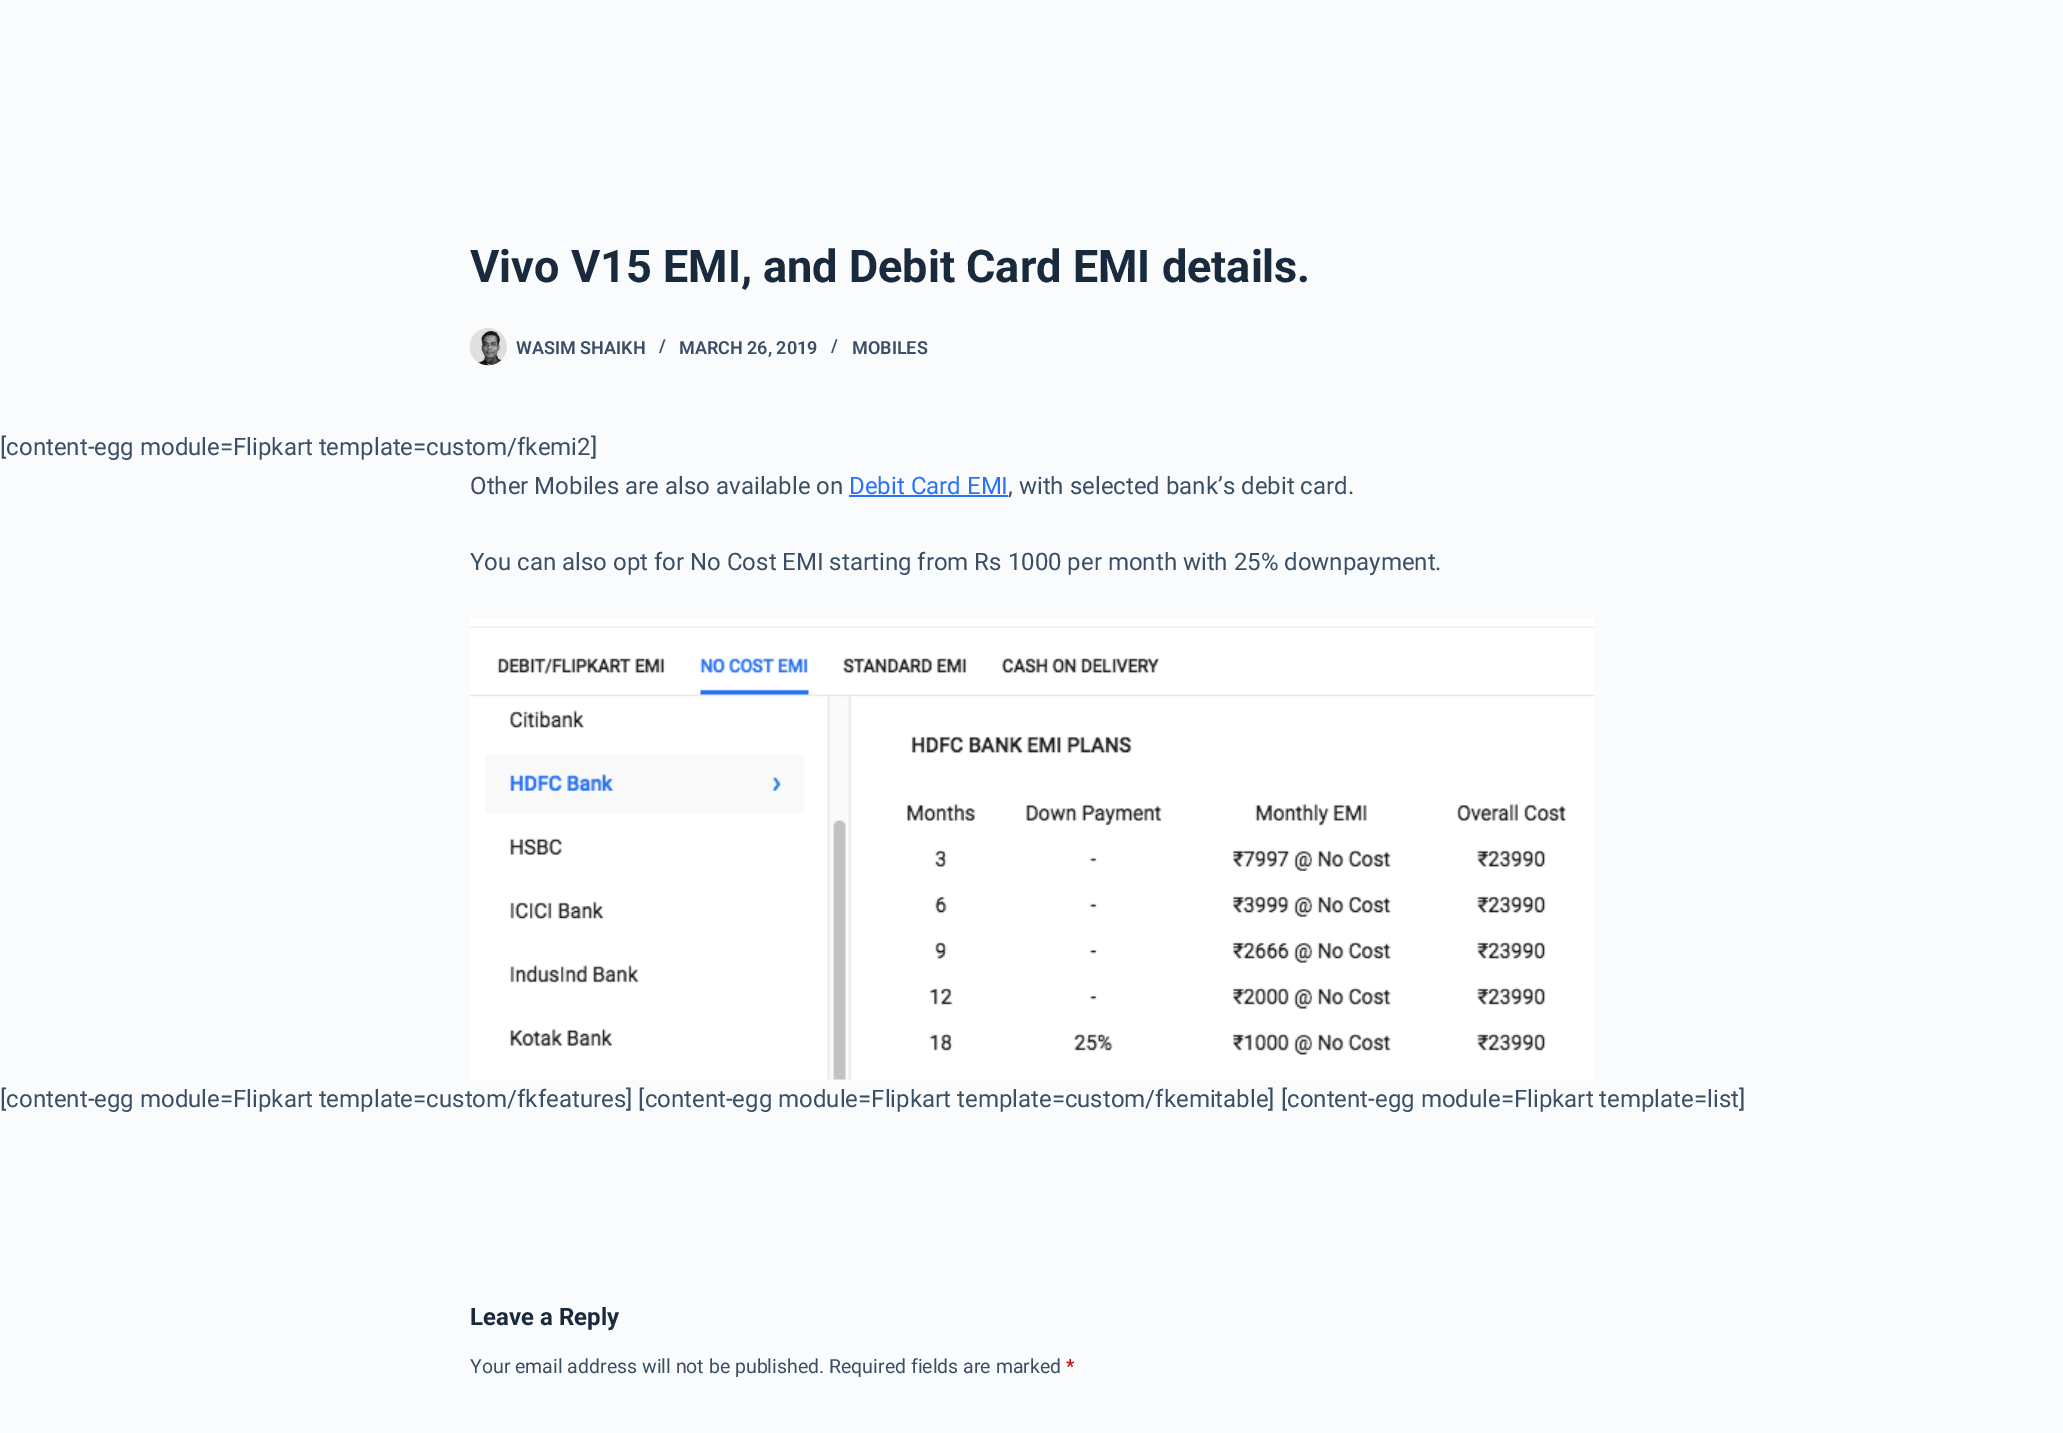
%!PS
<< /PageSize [2063 1433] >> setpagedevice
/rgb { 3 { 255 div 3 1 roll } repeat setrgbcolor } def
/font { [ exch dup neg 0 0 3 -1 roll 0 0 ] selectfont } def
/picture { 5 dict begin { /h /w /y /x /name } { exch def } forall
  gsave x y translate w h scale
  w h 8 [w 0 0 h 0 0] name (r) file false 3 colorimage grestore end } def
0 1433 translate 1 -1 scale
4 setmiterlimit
250 251 252 rgb
0 0 2063 1433 rectfill
(img/1.rgb) 469 328 38 38 picture
40 114 250 rgb
849 495 159 2 rectfill
(img/2.rgb) 469 618 1126 462 picture
/Roboto-Bold 45 font
25 42 61 rgb
470 282 moveto (Vivo V15 EMI, and Debit Card EMI details.) show
/Roboto-SemiBold 18 font
58 79 102 rgb
[
  [(WASIM SHAIKH) 516 354]
  [(/) 659 352]
  [(MARCH 26, 2019) 679 354]
  [(/) 831 352]
  [(MOBILES) 852 354]
] { aload pop moveto show } forall
/Roboto-Regular 24 font
0 455 moveto ([content-egg module=Flipkart template=custom/fkemi2]) show
470 494 moveto (Other Mobiles are also available on) show
40 114 250 rgb
849 494 moveto (Debit Card EMI) show
58 79 102 rgb
[
  [(, with selected bank’s debit card.) 1008 494]
  [(You can also opt for No Cost EMI starting from Rs 1000 per month with 25% downpayment.) 470 570]
  [([content-egg module=Flipkart template=custom/fkfeatures] [content-egg module=Flipkart template=custom/fkemitable] [content-egg module=Flipkart template=list]) 0 1107]
] { aload pop moveto show } forall
/Roboto-Bold 24 font
25 42 61 rgb
470 1325 moveto (Leave a Reply) show
/Roboto-Regular 19.5 font
58 79 102 rgb
470 1373 moveto (Your email address will not be published. Required fields are marked) show
204 0 0 rgb
1066 1373 moveto (*) show
showpage
